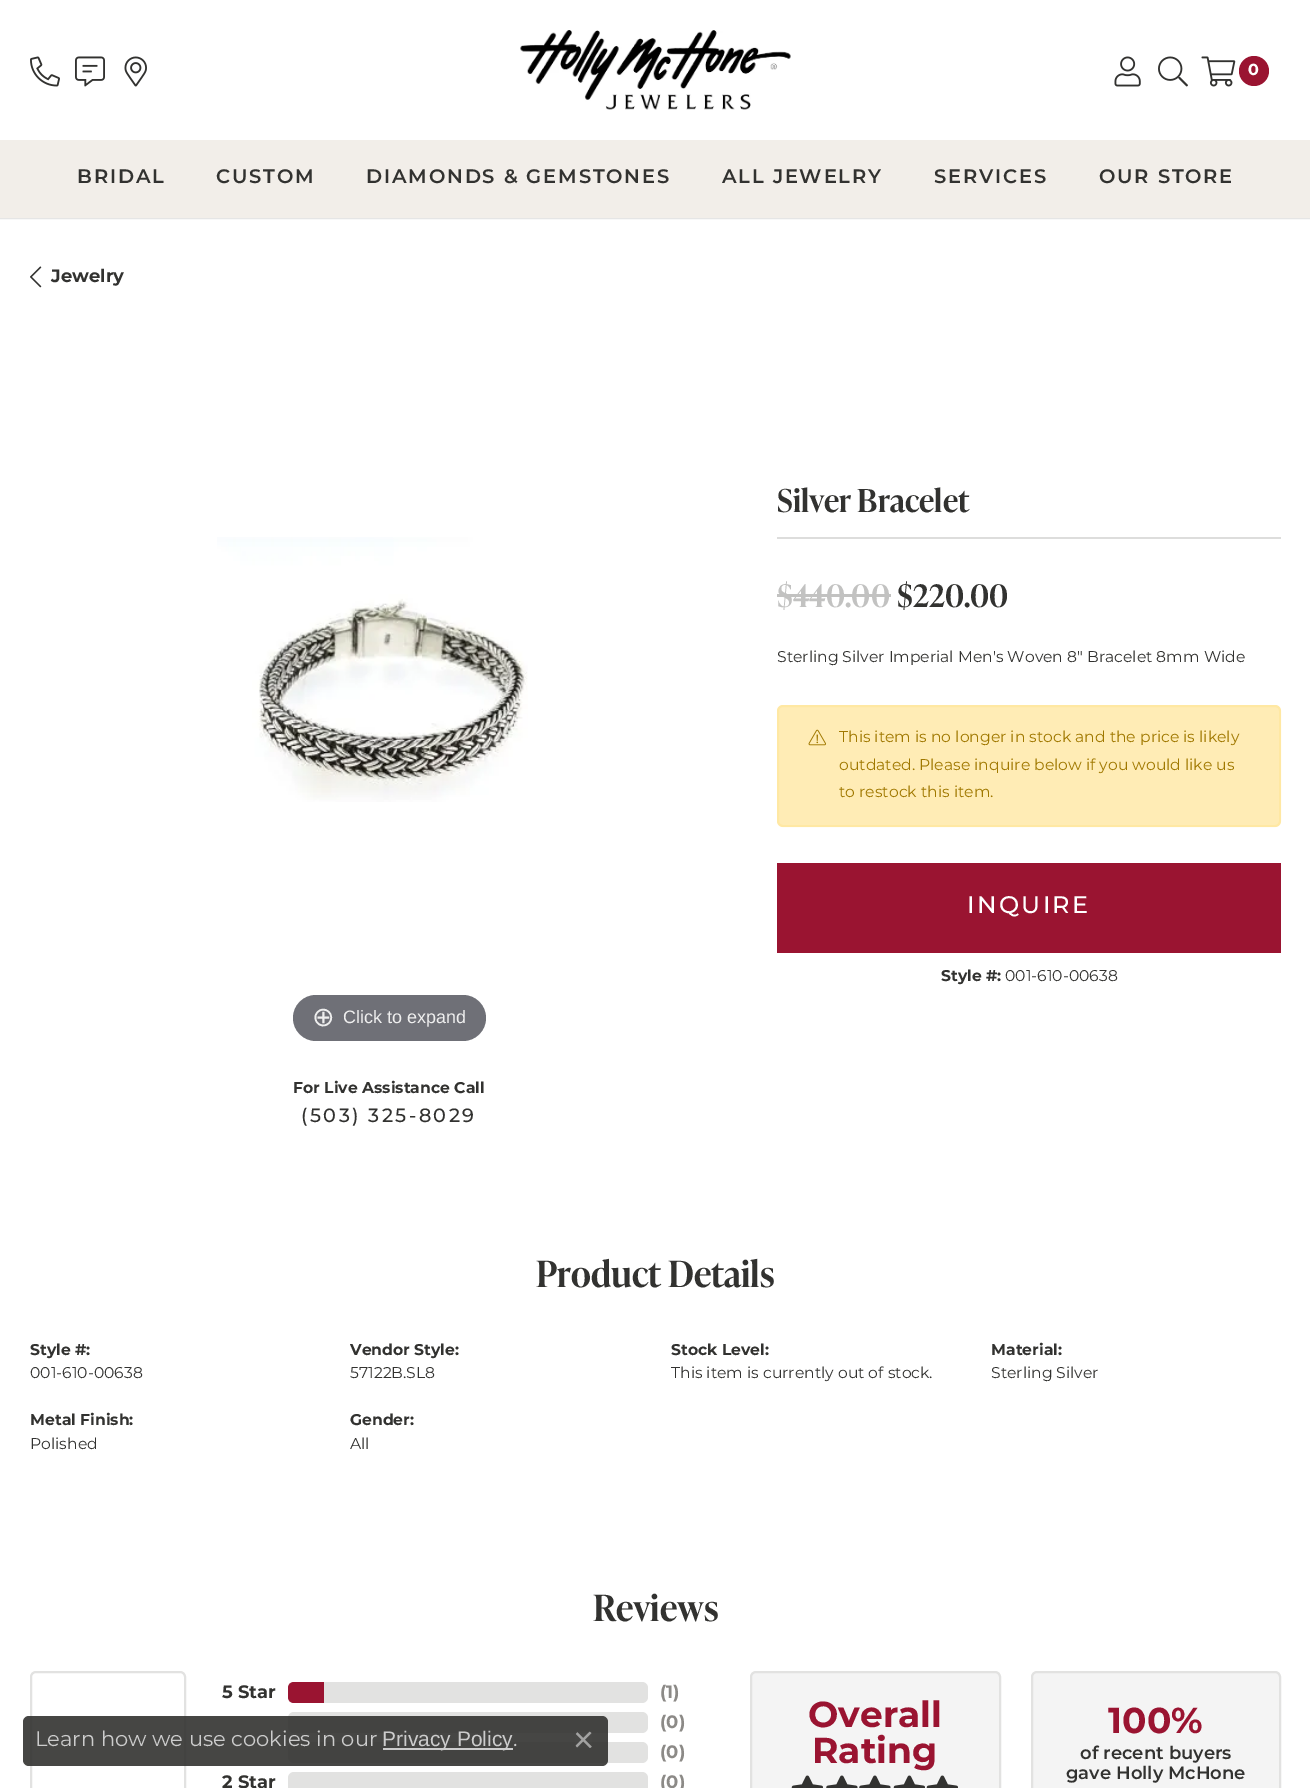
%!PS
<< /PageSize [1310 1788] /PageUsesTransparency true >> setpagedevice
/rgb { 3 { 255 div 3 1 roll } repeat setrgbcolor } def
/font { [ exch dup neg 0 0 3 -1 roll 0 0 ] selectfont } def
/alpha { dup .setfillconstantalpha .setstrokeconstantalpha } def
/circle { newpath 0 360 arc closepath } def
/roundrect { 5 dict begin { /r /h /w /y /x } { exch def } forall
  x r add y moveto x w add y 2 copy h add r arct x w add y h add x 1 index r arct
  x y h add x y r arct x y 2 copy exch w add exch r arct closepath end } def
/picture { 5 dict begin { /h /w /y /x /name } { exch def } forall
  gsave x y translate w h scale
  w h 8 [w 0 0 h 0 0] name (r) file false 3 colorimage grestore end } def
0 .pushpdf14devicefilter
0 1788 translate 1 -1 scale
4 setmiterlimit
255 255 255 rgb
0 0 1310 1788 rectfill
0.1 alpha
0 0 0 rgb
2 setlinewidth
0 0 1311 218 rectstroke
1 alpha
255 255 255 rgb
0 0 1310 140 rectfill
(img/1.rgb) 520 30 271 80 picture
(img/2.rgb) 30 56 30 31 picture
(img/3.rgb) 75 56 30 31 picture
(img/4.rgb) 124 56 23 31 picture
(img/5.rgb) 1114 56 27 31 picture
(img/6.rgb) 1158 56 30 31 picture
(img/7.rgb) 1201 56 35 31 picture
154 20 49 rgb
1254 71 15 circle fill
242 238 233 rgb
0 140 1310 78 rectfill
(img/8.rgb) 30 266 12 22 picture
221 221 220 rgb
777 537 504 2 rectfill
194 194 193 rgb
777 594 114 3 rectfill
255 236 181 rgb
777 705 504 122 6 roundrect fill
0.1 alpha
255 193 7 rgb
778 706 502 120 5 roundrect stroke
1 alpha
(img/9.rgb) 808 729 18 17 picture
154 20 49 rgb
777 863 504 90 rectfill
(img/10.rgb) 217 537 311 265 picture
111 112 119 rgb
293 995 193 46 23 roundrect fill
226 226 225 rgb
31 1672 154 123 5 roundrect stroke
288 1682 360 21 6 roundrect fill
154 20 49 rgb
294 1682 moveto 324 1682 lineto 324 1703 lineto 294 1703 lineto 290.5 1703 288 1700.5 288 1697 curveto 288 1688 lineto 288 1684.5 290.5 1682 294 1682 curveto closepath fill
226 226 225 rgb
288 1712 360 21 6 roundrect fill
288 1742 360 21 6 roundrect fill
288 1772 360 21 6 roundrect fill
244 244 244 rgb
751 1672 249 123 5 roundrect gsave fill grestore
226 226 225 rgb
stroke
(img/11.rgb) 791 1775 32 13 picture
(img/12.rgb) 826 1775 32 13 picture
(img/12.rgb) 859 1775 32 13 picture
(img/11.rgb) 893 1775 32 13 picture
(img/11.rgb) 926 1775 32 13 picture
244 244 244 rgb
1032 1672 248 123 5 roundrect gsave fill grestore
226 226 225 rgb
stroke
0.9 alpha
50 50 48 rgb
23 1716 585 50 6 roundrect fill
1 alpha
204 204 204 rgb
383 1748 130 2 rectfill
(img/13.rgb) 575 1731 17 17 picture
/Montserrat-Bold 16 font
255 255 255 rgb
1248 75 moveto (0) show
/Montserrat-SemiBold 19.5 font
50 50 48 rgb
77 183 moveto 1.8 0 (BRIDAL) ashow
216 183 moveto 1.8 0 (CUSTOM) ashow
366 183 moveto 1.8 0 (DIAMONDS & GEMSTONES) ashow
722 183 moveto 1.8 0 (ALL JEWELRY) ashow
934 183 moveto 1.8 0 (SERVICES) ashow
1099 183 moveto 1.8 0 (OUR STORE) ashow
/Montserrat-Bold 18 font
51 282 moveto (Jewelry) show
/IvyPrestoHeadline-SemiBold 31.5 font
777 512 moveto (Silver Bracelet) show
/IvyPrestoHeadline-SemiBold 31 font
194 194 193 rgb
777 607 moveto ($440.00) show
50 50 48 rgb
897 607 moveto ($220.00) show
/Montserrat-Regular 15.6 font
777 662 moveto (Sterling Silver Imperial Men's Woven 8" Bracelet 8mm Wide) show
160 120 0 rgb
[
  [(This item is no longer in stock and the price is likely) 839 742]
  [(outdated. Please inquire below if you would like us) 839 770]
  [(to restock this item.) 839 797]
] { aload pop moveto show } forall
/Montserrat-Medium 24 font
255 255 255 rgb
967 913 moveto 2.4 0 (INQUIRE) ashow
/Montserrat-Bold 15.6 font
50 50 48 rgb
941 981 moveto (Style #:) show
/Montserrat-Regular 15.6 font
1005 981 moveto (001-610-00638) show
/DejaVuSans-Regular 27 font
238 238 238 rgb
312 1026 moveto (⊕) show
/LiberationSans-Regular 18 font
343 1023 moveto (Click to expand) show
/Montserrat-Bold 15.6 font
50 50 48 rgb
293 1093 moveto (For Live Assistance Call) show
/Montserrat-Medium 19.25 font
301 1122 moveto 2.4 0 (\(503\) 325-8029) ashow
/IvyPrestoHeadline-SemiBold 36 font
536 1287 moveto (Product Details) show
/Montserrat-Bold 15.6 font
30 1355 moveto (Style #:) show
/Montserrat-Regular 15.6 font
30 1378 moveto (001-610-00638) show
/Montserrat-Bold 15.6 font
30 1425 moveto (Metal Finish:) show
/Montserrat-Regular 15.6 font
30 1449 moveto (Polished) show
/Montserrat-Bold 15.6 font
350 1355 moveto (Vendor Style:) show
/Montserrat-Regular 15.6 font
350 1378 moveto (57122B.SL8) show
/Montserrat-Bold 15.6 font
350 1425 moveto (Gender:) show
/Montserrat-Regular 15.6 font
350 1449 moveto (All) show
/Montserrat-Bold 15.6 font
671 1355 moveto (Stock Level:) show
/Montserrat-Regular 15.6 font
671 1378 moveto (This item is currently out of stock.) show
/Montserrat-Bold 15.6 font
991 1355 moveto (Material:) show
/Montserrat-Regular 15.6 font
991 1378 moveto (Sterling Silver) show
/IvyPrestoHeadline-SemiBold 36 font
593 1621 moveto (Reviews) show
/Montserrat-Bold 18 font
222 1698 moveto (5 Star) show
222 1788 moveto (2 Star) show
140 138 135 rgb
[
  [(\(1\)) 660 1698]
  [(\(0\)) 660 1728]
  [(\(0\)) 660 1758]
  [(\(0\)) 660 1788]
] { aload pop moveto show } forall
/Montserrat-Bold 36 font
154 20 49 rgb
[
  [(Overall) 808 1727]
  [(Rating) 812 1763]
  [(100%) 1108 1733]
] { aload pop moveto show } forall
/Montserrat-SemiBold 18 font
50 50 48 rgb
1080 1759 moveto (of recent buyers) show
1066 1779 moveto (gave Holly McHone) show
/Montserrat-Regular 21 font
204 204 204 rgb
35 1746 moveto (Learn how we use cookies in our) show
/LiberationSans-Regular 21 font
382 1746 moveto (Privacy Policy) show
/Montserrat-Regular 21 font
513 1746 moveto (.) show
.poppdf14devicefilter showpage
